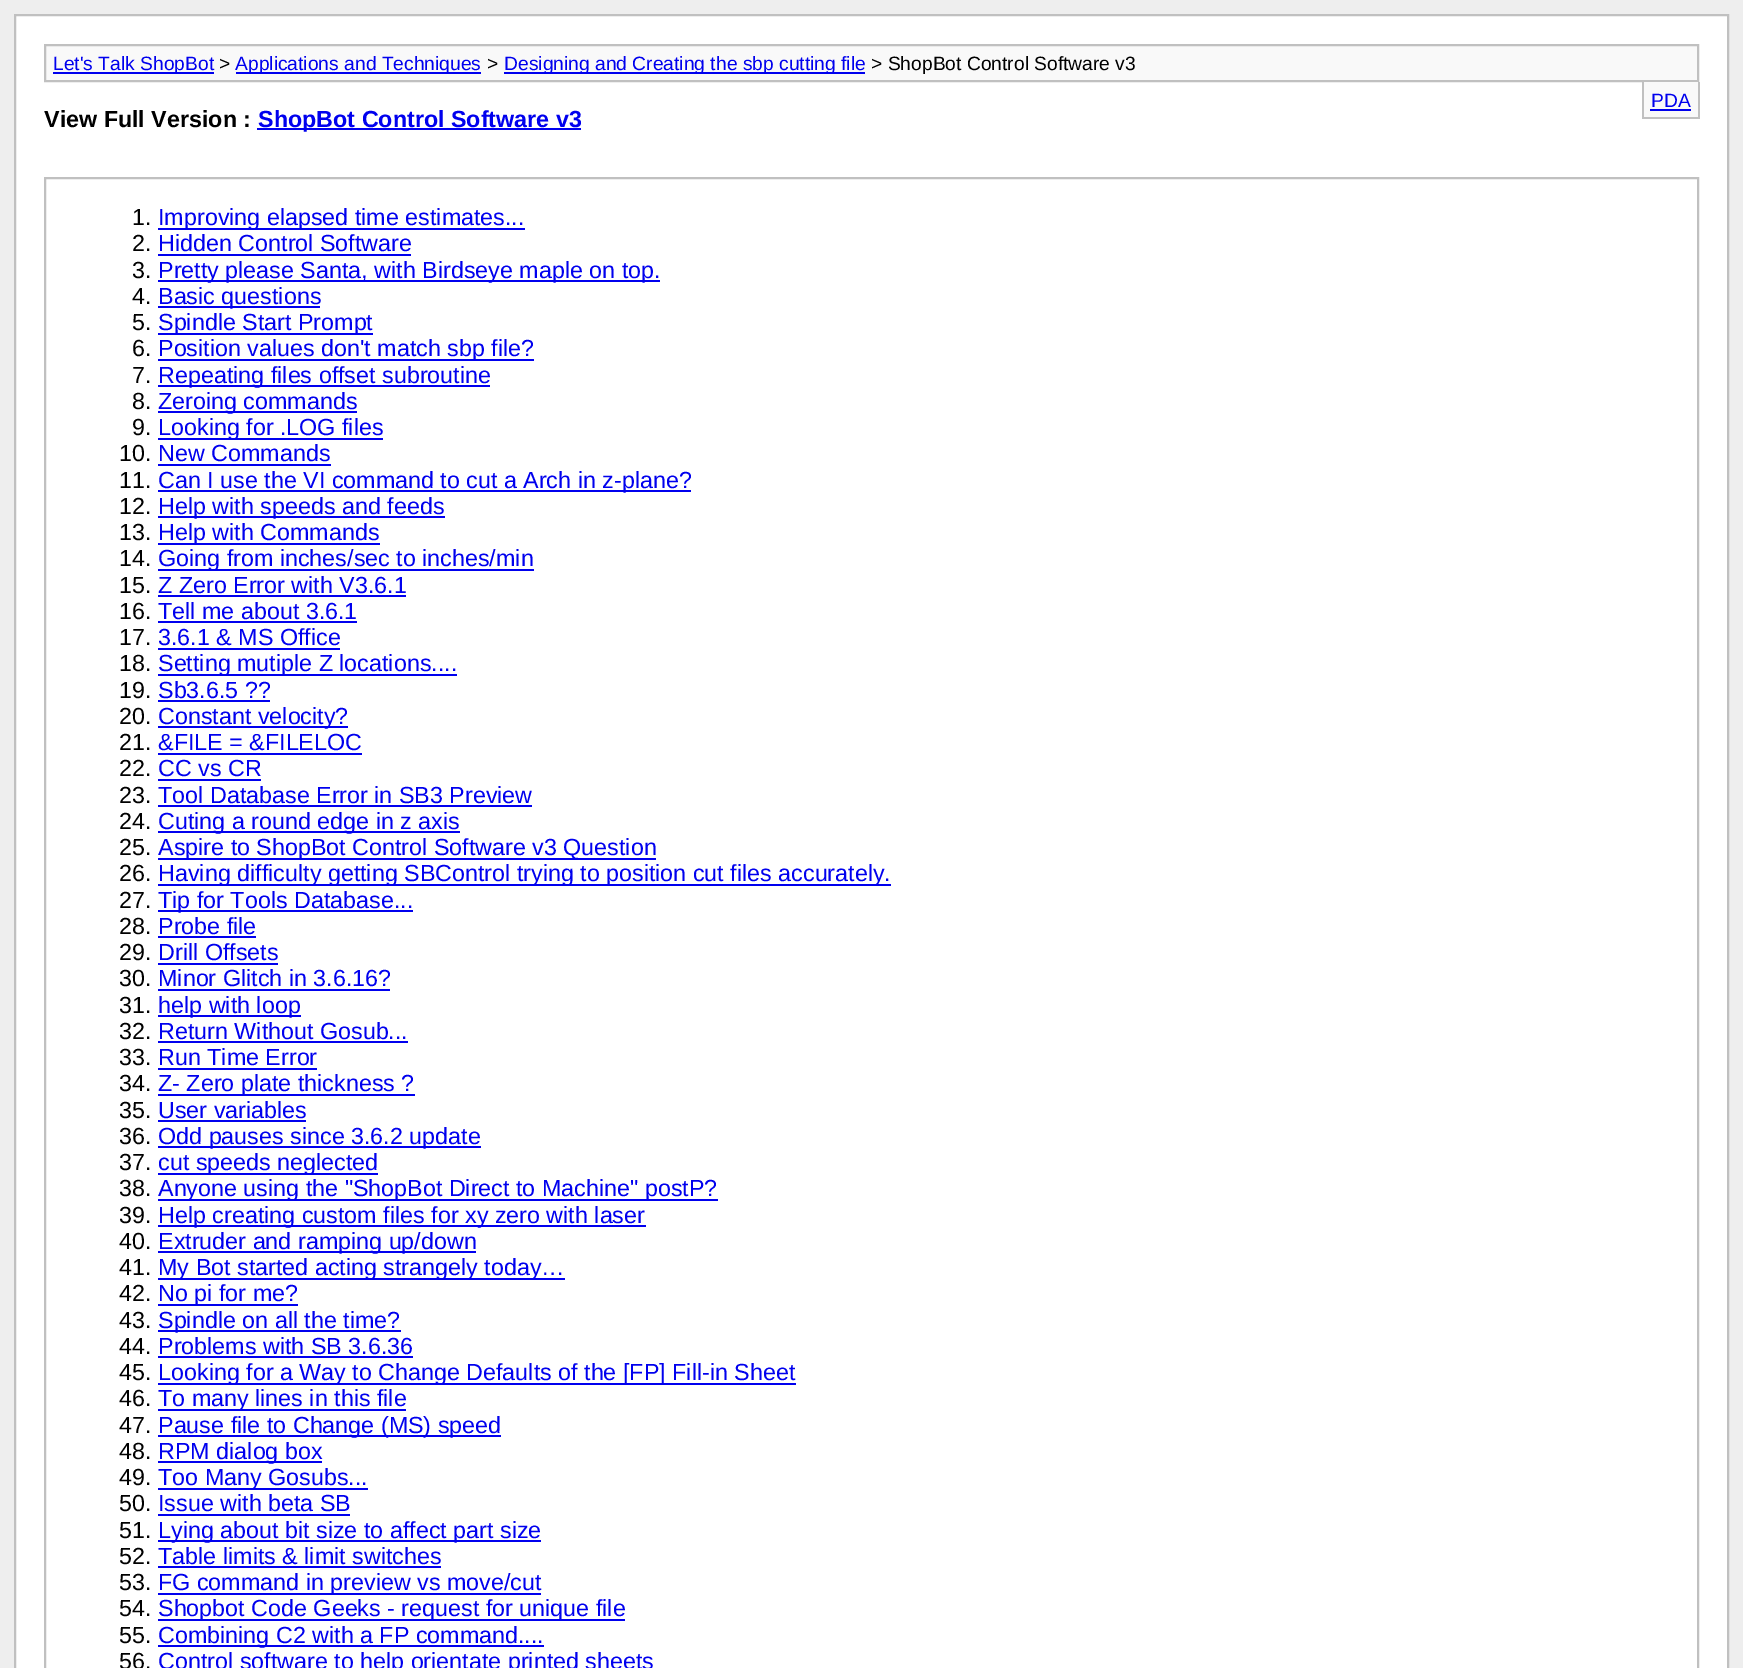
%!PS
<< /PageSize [1743 1668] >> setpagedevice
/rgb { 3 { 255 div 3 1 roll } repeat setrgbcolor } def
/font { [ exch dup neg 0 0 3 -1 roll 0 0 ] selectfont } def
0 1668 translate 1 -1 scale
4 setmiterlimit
238 238 238 rgb
0 0 1743 1668 rectfill
255 255 255 rgb
15 15 moveto 1728 15 lineto 1728 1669 lineto 15 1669 lineto closepath gsave fill grestore
192 192 192 rgb
2 setlinewidth
stroke
249 249 249 rgb
45 45 moveto 1698 45 lineto 1698 81 lineto 45 81 lineto closepath gsave fill grestore
192 192 192 rgb
stroke
[
  [53 72 161 2 0 0 238]
  [236 72 245 2 0 0 238]
  [504 72 361 2 0 0 238]
  [1644 82 54 35 249 249 249]
  [1698 82 2 37 192 192 192]
  [1642 117 57 2 192 192 192]
  [1642 82 2 37 192 192 192]
  [1650 109 41 2 0 0 238]
  [257 128 324 2 0 0 238]
] { aload pop rgb rectfill } forall
192 192 192 rgb
45 178 1653 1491 rectstroke
[
  [158 228 367 2 0 0 238]
  [158 254 253 2 0 0 238]
  [158 280 502 2 0 0 238]
  [158 306 162 2 0 0 238]
  [158 333 215 2 0 0 238]
  [158 359 376 2 0 0 238]
  [158 385 332 2 0 0 238]
  [158 411 199 2 0 0 238]
  [158 438 225 2 0 0 238]
  [158 464 173 2 0 0 238]
  [158 490 533 2 0 0 238]
  [158 516 287 2 0 0 238]
  [158 543 222 2 0 0 238]
  [158 569 376 2 0 0 238]
  [158 595 248 2 0 0 238]
  [158 621 199 2 0 0 238]
  [158 648 182 2 0 0 238]
  [158 674 299 2 0 0 238]
  [158 700 112 2 0 0 238]
  [158 726 190 2 0 0 238]
  [158 753 204 2 0 0 238]
  [158 779 103 2 0 0 238]
  [158 805 374 2 0 0 238]
  [158 831 302 2 0 0 238]
  [158 858 498 2 0 0 238]
  [158 884 733 2 0 0 238]
  [158 910 255 2 0 0 238]
  [158 936 98 2 0 0 238]
  [158 963 120 2 0 0 238]
  [158 989 232 2 0 0 238]
  [158 1015 143 2 0 0 238]
  [158 1041 250 2 0 0 238]
  [158 1068 159 2 0 0 238]
  [158 1094 257 2 0 0 238]
  [158 1120 148 2 0 0 238]
  [158 1146 323 2 0 0 238]
  [158 1173 220 2 0 0 238]
  [158 1199 560 2 0 0 238]
  [158 1225 488 2 0 0 238]
  [158 1251 318 2 0 0 238]
  [158 1278 407 2 0 0 238]
  [158 1304 140 2 0 0 238]
  [158 1330 243 2 0 0 238]
  [158 1356 255 2 0 0 238]
  [158 1383 638 2 0 0 238]
  [158 1409 248 2 0 0 238]
  [158 1435 343 2 0 0 238]
  [158 1461 164 2 0 0 238]
  [158 1488 210 2 0 0 238]
  [158 1514 192 2 0 0 238]
  [158 1540 383 2 0 0 238]
  [158 1566 283 2 0 0 238]
  [158 1593 383 2 0 0 238]
  [158 1619 467 2 0 0 238]
  [158 1645 386 2 0 0 238]
] { aload pop rgb rectfill } forall
/LiberationSans-Regular 19.25 font
53 70 moveto (Let's Talk ShopBot) show
0 0 0 rgb
219 70 moveto (>) show
0 0 238 rgb
235 70 moveto (Applications and Techniques) show
0 0 0 rgb
487 70 moveto (>) show
0 0 238 rgb
504 70 moveto (Designing and Creating the sbp cutting file) show
0 0 0 rgb
871 70 moveto (> ShopBot Control Software v3) show
0 0 238 rgb
1651 107 moveto (PDA) show
/LiberationSans-Bold 23.3 font
0 0 0 rgb
44 127 moveto (View Full Version :) show
0 0 238 rgb
258 127 moveto (ShopBot Control Software v3) show
/LiberationSans-Regular 23.3 font
0 0 0 rgb
132 225 moveto (1.) show
0 0 238 rgb
158 225 moveto (Improving elapsed time estimates...) show
0 0 0 rgb
132 251 moveto (2.) show
0 0 238 rgb
158 251 moveto (Hidden Control Software) show
0 0 0 rgb
132 278 moveto (3.) show
0 0 238 rgb
158 278 moveto (Pretty please Santa, with Birdseye maple on top.) show
0 0 0 rgb
132 304 moveto (4.) show
0 0 238 rgb
158 304 moveto (Basic questions) show
0 0 0 rgb
132 330 moveto (5.) show
0 0 238 rgb
158 330 moveto (Spindle Start Prompt) show
0 0 0 rgb
132 356 moveto (6.) show
0 0 238 rgb
158 356 moveto (Position values don't match sbp file?) show
0 0 0 rgb
132 383 moveto (7.) show
0 0 238 rgb
158 383 moveto (Repeating files offset subroutine) show
0 0 0 rgb
132 409 moveto (8.) show
0 0 238 rgb
158 409 moveto (Zeroing commands) show
0 0 0 rgb
132 435 moveto (9.) show
0 0 238 rgb
158 435 moveto (Looking for .LOG files) show
0 0 0 rgb
119 461 moveto (10.) show
0 0 238 rgb
158 461 moveto (New Commands) show
0 0 0 rgb
119 488 moveto (11.) show
0 0 238 rgb
158 488 moveto (Can I use the VI command to cut a Arch in z-plane?) show
0 0 0 rgb
119 514 moveto (12.) show
0 0 238 rgb
158 514 moveto (Help with speeds and feeds) show
0 0 0 rgb
119 540 moveto (13.) show
0 0 238 rgb
158 540 moveto (Help with Commands) show
0 0 0 rgb
119 566 moveto (14.) show
0 0 238 rgb
158 566 moveto (Going from inches/sec to inches/min) show
0 0 0 rgb
119 593 moveto (15.) show
0 0 238 rgb
158 593 moveto (Z Zero Error with V3.6.1) show
0 0 0 rgb
119 619 moveto (16.) show
0 0 238 rgb
158 619 moveto (Tell me about 3.6.1) show
0 0 0 rgb
119 645 moveto (17.) show
0 0 238 rgb
158 645 moveto (3.6.1 & MS Office) show
0 0 0 rgb
119 671 moveto (18.) show
0 0 238 rgb
158 671 moveto (Setting mutiple Z locations....) show
0 0 0 rgb
119 698 moveto (19.) show
0 0 238 rgb
158 698 moveto (Sb3.6.5 ??) show
0 0 0 rgb
119 724 moveto (20.) show
0 0 238 rgb
158 724 moveto (Constant velocity?) show
0 0 0 rgb
119 750 moveto (21.) show
0 0 238 rgb
158 750 moveto (&FILE = &FILELOC) show
0 0 0 rgb
119 776 moveto (22.) show
0 0 238 rgb
158 776 moveto (CC vs CR) show
0 0 0 rgb
119 803 moveto (23.) show
0 0 238 rgb
158 803 moveto (Tool Database Error in SB3 Preview) show
0 0 0 rgb
119 829 moveto (24.) show
0 0 238 rgb
158 829 moveto (Cuting a round edge in z axis) show
0 0 0 rgb
119 855 moveto (25.) show
0 0 238 rgb
158 855 moveto (Aspire to ShopBot Control Software v3 Question) show
0 0 0 rgb
119 881 moveto (26.) show
0 0 238 rgb
158 881 moveto (Having difficulty getting SBControl trying to position cut files accurately.) show
0 0 0 rgb
119 908 moveto (27.) show
0 0 238 rgb
158 908 moveto (Tip for Tools Database...) show
0 0 0 rgb
119 934 moveto (28.) show
0 0 238 rgb
158 934 moveto (Probe file) show
0 0 0 rgb
119 960 moveto (29.) show
0 0 238 rgb
158 960 moveto (Drill Offsets) show
0 0 0 rgb
119 986 moveto (30.) show
0 0 238 rgb
158 986 moveto (Minor Glitch in 3.6.16?) show
0 0 0 rgb
119 1013 moveto (31.) show
0 0 238 rgb
158 1013 moveto (help with loop) show
0 0 0 rgb
119 1039 moveto (32.) show
0 0 238 rgb
158 1039 moveto (Return Without Gosub...) show
0 0 0 rgb
119 1065 moveto (33.) show
0 0 238 rgb
158 1065 moveto (Run Time Error) show
0 0 0 rgb
119 1091 moveto (34.) show
0 0 238 rgb
158 1091 moveto (Z- Zero plate thickness ?) show
0 0 0 rgb
119 1118 moveto (35.) show
0 0 238 rgb
158 1118 moveto (User variables) show
0 0 0 rgb
119 1144 moveto (36.) show
0 0 238 rgb
158 1144 moveto (Odd pauses since 3.6.2 update) show
0 0 0 rgb
119 1170 moveto (37.) show
0 0 238 rgb
158 1170 moveto (cut speeds neglected) show
0 0 0 rgb
119 1196 moveto (38.) show
0 0 238 rgb
158 1196 moveto (Anyone using the "ShopBot Direct to Machine" postP?) show
0 0 0 rgb
119 1223 moveto (39.) show
0 0 238 rgb
158 1223 moveto (Help creating custom files for xy zero with laser) show
0 0 0 rgb
119 1249 moveto (40.) show
0 0 238 rgb
158 1249 moveto (Extruder and ramping up/down) show
0 0 0 rgb
119 1275 moveto (41.) show
0 0 238 rgb
158 1275 moveto (My Bot started acting strangely today…) show
0 0 0 rgb
119 1301 moveto (42.) show
0 0 238 rgb
158 1301 moveto (No pi for me?) show
0 0 0 rgb
119 1328 moveto (43.) show
0 0 238 rgb
158 1328 moveto (Spindle on all the time?) show
0 0 0 rgb
119 1354 moveto (44.) show
0 0 238 rgb
158 1354 moveto (Problems with SB 3.6.36) show
0 0 0 rgb
119 1380 moveto (45.) show
0 0 238 rgb
158 1380 moveto (Looking for a Way to Change Defaults of the [FP] Fill-in Sheet) show
0 0 0 rgb
119 1406 moveto (46.) show
0 0 238 rgb
158 1406 moveto (To many lines in this file) show
0 0 0 rgb
119 1433 moveto (47.) show
0 0 238 rgb
158 1433 moveto (Pause file to Change \(MS\) speed) show
0 0 0 rgb
119 1459 moveto (48.) show
0 0 238 rgb
158 1459 moveto (RPM dialog box) show
0 0 0 rgb
119 1485 moveto (49.) show
0 0 238 rgb
158 1485 moveto (Too Many Gosubs...) show
0 0 0 rgb
119 1511 moveto (50.) show
0 0 238 rgb
158 1511 moveto (Issue with beta SB) show
0 0 0 rgb
119 1538 moveto (51.) show
0 0 238 rgb
158 1538 moveto (Lying about bit size to affect part size) show
0 0 0 rgb
119 1564 moveto (52.) show
0 0 238 rgb
158 1564 moveto (Table limits & limit switches) show
0 0 0 rgb
119 1590 moveto (53.) show
0 0 238 rgb
158 1590 moveto (FG command in preview vs move/cut) show
0 0 0 rgb
119 1616 moveto (54.) show
0 0 238 rgb
158 1616 moveto (Shopbot Code Geeks - request for unique file) show
0 0 0 rgb
119 1643 moveto (55.) show
0 0 238 rgb
158 1643 moveto (Combining C2 with a FP command....) show
0 0 0 rgb
119 1669 moveto (56.) show
0 0 238 rgb
158 1669 moveto (Control software to help orientate printed sheets) show
showpage
